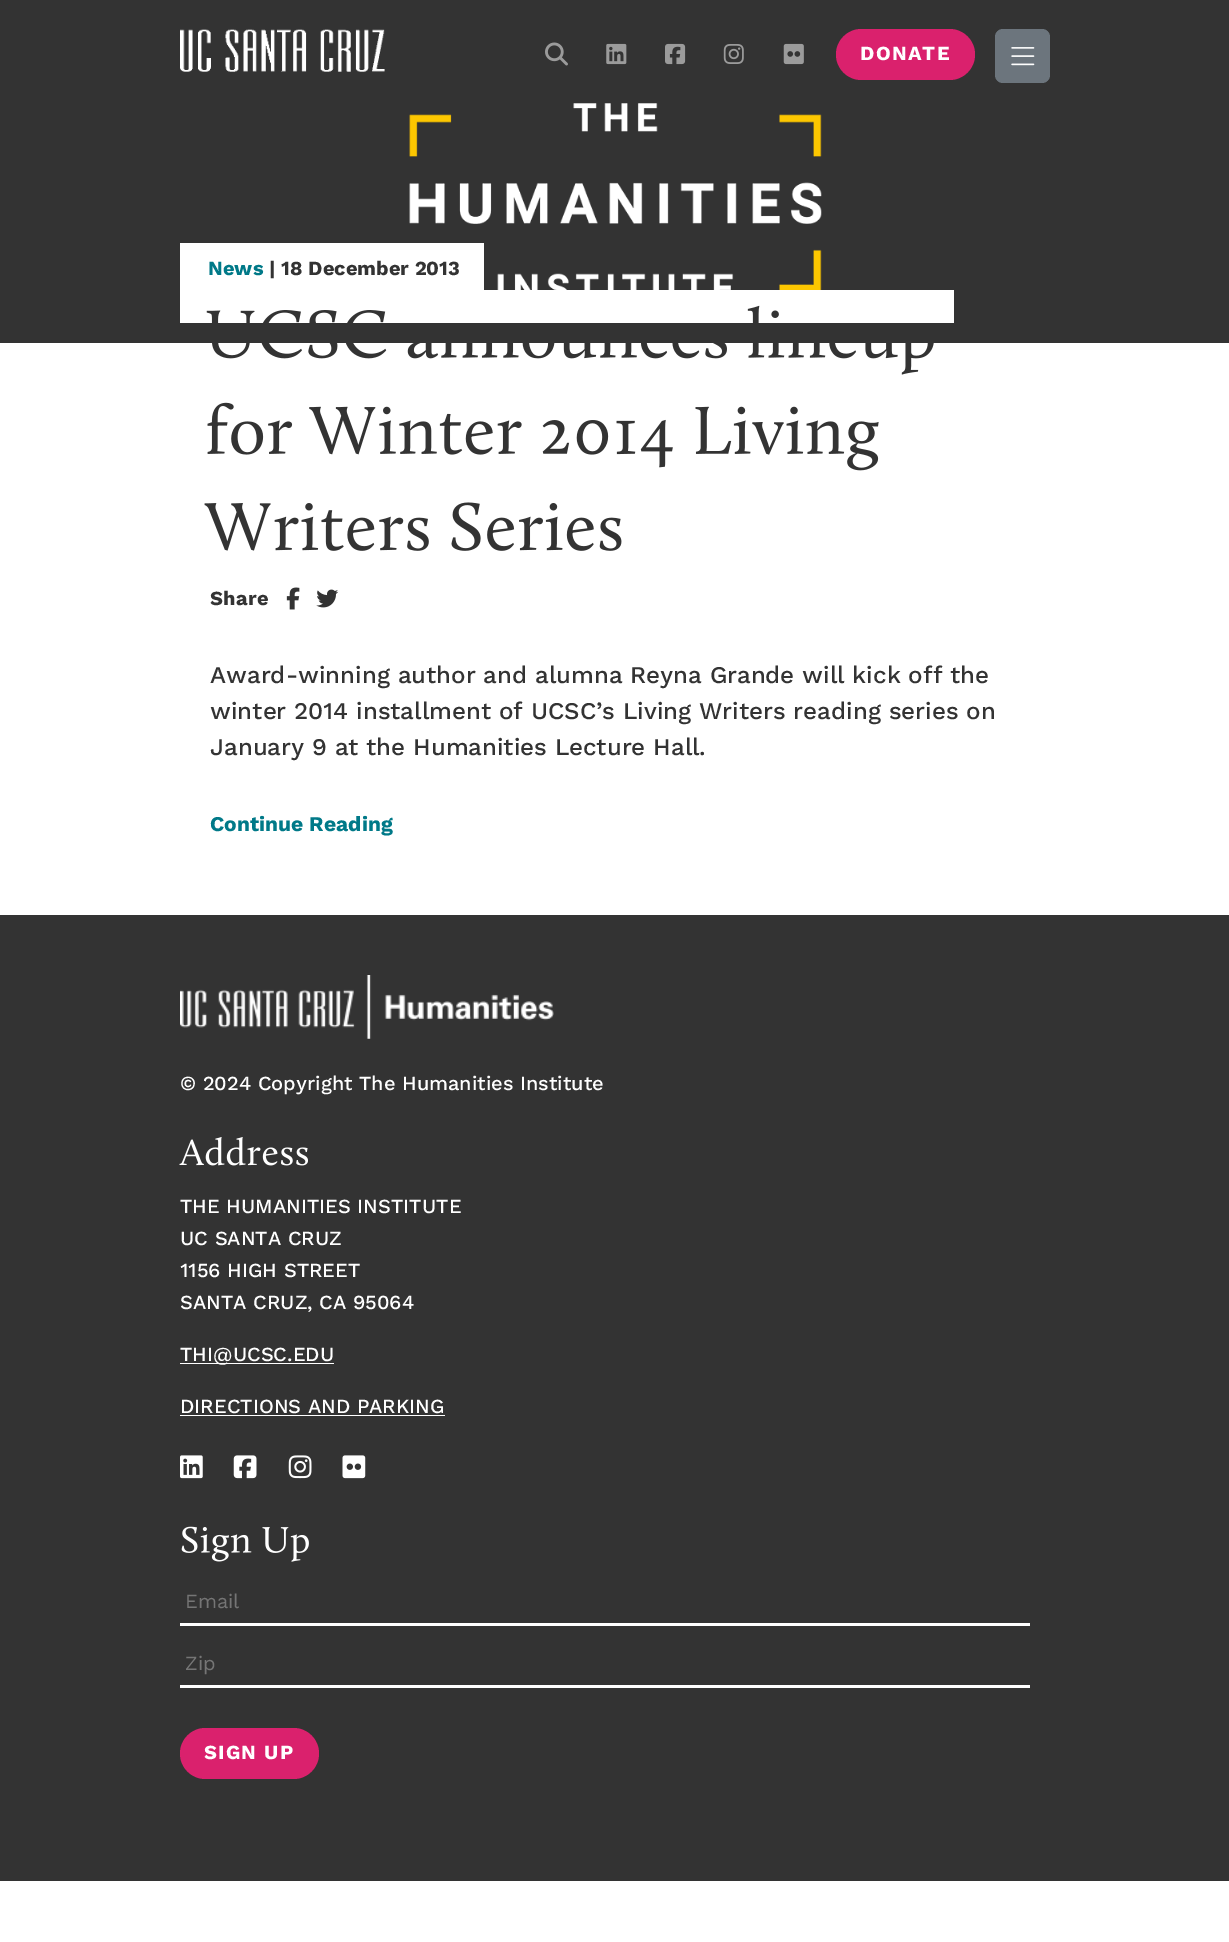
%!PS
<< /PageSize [1229 1942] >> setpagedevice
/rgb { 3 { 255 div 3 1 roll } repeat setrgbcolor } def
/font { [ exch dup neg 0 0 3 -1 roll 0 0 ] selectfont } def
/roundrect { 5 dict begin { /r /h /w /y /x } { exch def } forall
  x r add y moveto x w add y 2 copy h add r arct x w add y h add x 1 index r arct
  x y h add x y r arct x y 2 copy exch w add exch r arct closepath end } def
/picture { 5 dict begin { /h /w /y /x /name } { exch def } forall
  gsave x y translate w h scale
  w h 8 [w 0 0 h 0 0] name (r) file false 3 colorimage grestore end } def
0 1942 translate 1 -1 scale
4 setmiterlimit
255 255 255 rgb
0 0 1229 1942 rectfill
51 51 51 rgb
0 0 1229 323 rectfill
(img/1.rgb) 409 103 413 187 picture
(img/2.rgb) 180 29 205 43 picture
(img/3.rgb) 545 42 23 24 picture
(img/4.rgb) 606 43 21 22 picture
(img/5.rgb) 665 43 21 22 picture
(img/6.rgb) 723 44 21 20 picture
(img/7.rgb) 783 43 21 22 picture
218 33 109 rgb
836 29 139 51 25.5 roundrect fill
108 117 125 rgb
995 29 55 54 8 roundrect fill
(img/8.rgb) 1011 47 24 19 picture
255 255 255 rgb
180 243 304 47 rectfill
180 290 774 33 rectfill
(img/9.rgb) 206 305 728 70 picture
(img/10.rgb) 207 402 672 69 picture
(img/11.rgb) 204 502 418 49 picture
(img/12.rgb) 286 587 14 23 picture
(img/13.rgb) 316 589 23 19 picture
51 51 51 rgb
0 323 1229 20 rectfill
0 915 1229 966 rectfill
(img/14.rgb) 180 975 374 64 picture
(img/15.rgb) 179 1137 129 29 picture
255 255 255 rgb
180 1363 154 1 rectfill
180 1415 265 1 rectfill
(img/16.rgb) 180 1455 23 24 picture
(img/17.rgb) 233 1455 24 24 picture
(img/18.rgb) 288 1455 24 24 picture
(img/19.rgb) 342 1455 24 24 picture
(img/20.rgb) 181 1526 128 36 picture
180 1623 850 3 rectfill
180 1685 850 3 rectfill
218 33 109 rgb
180 1728 139 51 25.5 roundrect fill
/WorkSans-Bold 20 font
255 255 255 rgb
860 60 moveto 1.25 0 (DONATE) ashow
0 121 136 rgb
208 275 moveto (News) show
51 51 51 rgb
269 275 moveto (| 18 December 2013) show
210 605 moveto 0.5 0 (Share) ashow
/WorkSans-Medium 24 font
[
  [(Award-winning author and alumna Reyna Grande will kick off the) 210 683]
  [(winter 2014 installment of UCSC’s Living Writers reading series on) 210 719]
  [(January 9 at the Humanities Lecture Hall.) 210 755]
] { aload pop moveto show } forall
/WorkSans-Bold 21 font
0 121 136 rgb
210 831 moveto (Continue Reading) show
/WorkSans-Medium 20 font
255 255 255 rgb
[
  [(© 2024 Copyright The Humanities Institute) 180 1090]
  [(THE HUMANITIES INSTITUTE) 180 1213]
  [(UC SANTA CRUZ) 180 1245]
  [(1156 HIGH STREET) 180 1277]
  [(SANTA CRUZ, CA 95064) 180 1309]
  [(THI@UCSC.EDU) 180 1361]
  [(DIRECTIONS AND PARKING) 180 1413]
] { aload pop moveto show } forall
/WorkSans-Regular 20 font
117 117 117 rgb
185 1608 moveto (Email) show
185 1670 moveto (Zip) show
/WorkSans-Bold 20 font
255 255 255 rgb
204 1759 moveto 1.25 0 (SIGN UP) ashow
showpage
